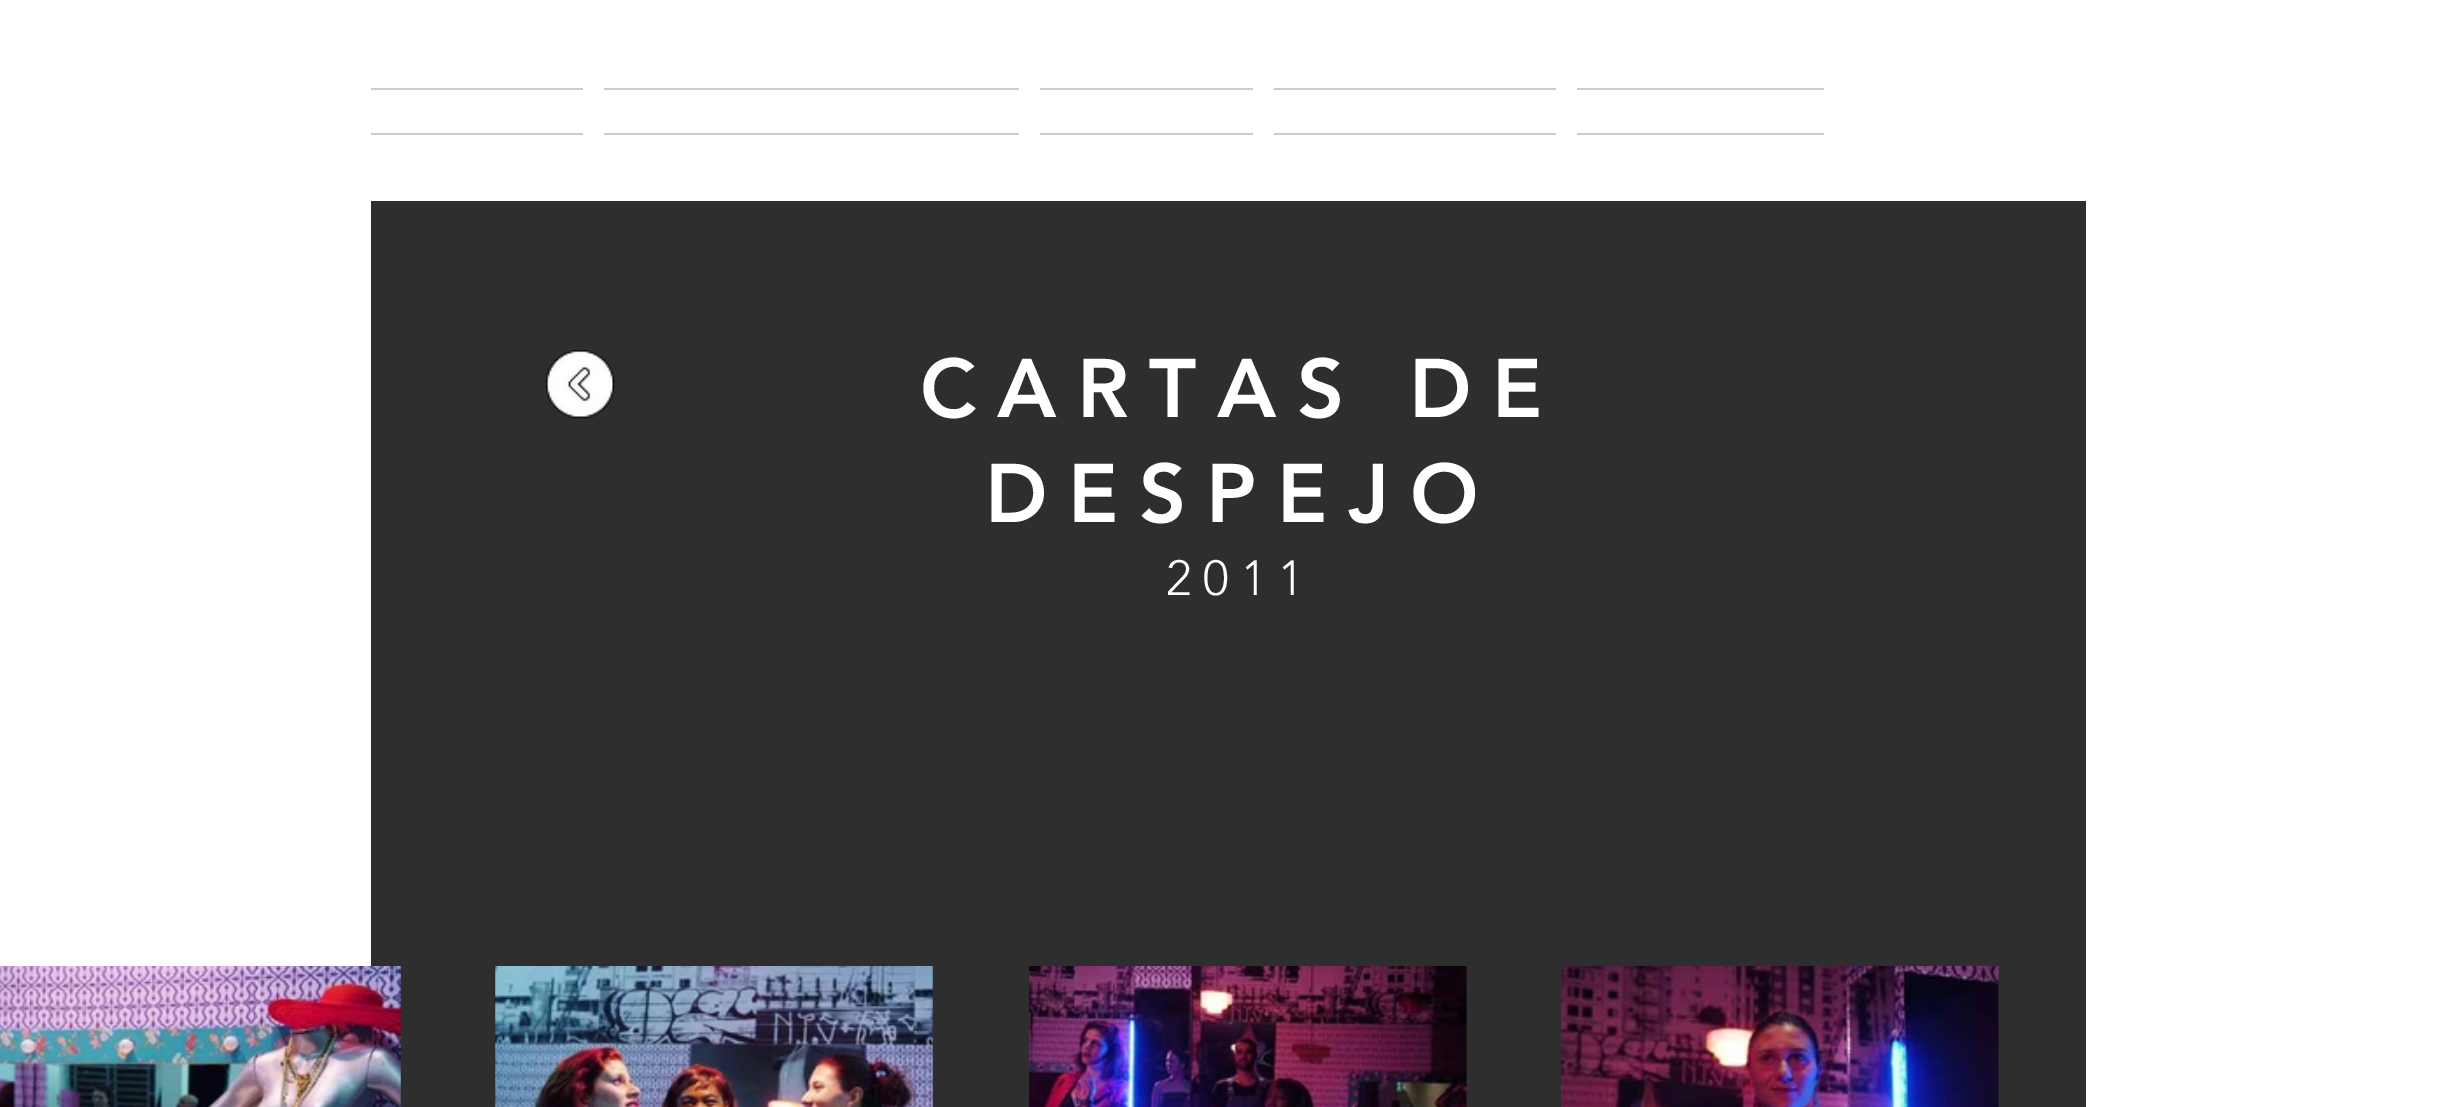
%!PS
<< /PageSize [2455 1107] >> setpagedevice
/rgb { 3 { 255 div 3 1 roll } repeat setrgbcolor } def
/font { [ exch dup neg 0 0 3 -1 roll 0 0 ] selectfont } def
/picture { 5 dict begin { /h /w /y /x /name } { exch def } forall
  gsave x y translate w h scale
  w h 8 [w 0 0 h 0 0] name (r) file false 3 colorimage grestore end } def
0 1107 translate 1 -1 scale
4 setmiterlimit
255 255 255 rgb
0 0 2455 1107 rectfill
[
  [371 88 212 2 204 204 204]
  [371 133 212 2 204 204 204]
  [604 88 415 2 204 204 204]
  [604 133 415 2 204 204 204]
  [1040 88 213 2 204 204 204]
  [1040 133 213 2 204 204 204]
  [1274 88 282 2 204 204 204]
  [1274 133 282 2 204 204 204]
  [1577 88 247 2 204 204 204]
  [1577 133 247 2 204 204 204]
  [371 201 1715 906 47 46 46]
] { aload pop rgb rectfill } forall
(img/1.rgb) 546 350 69 69 picture
(img/2.rgb) 0 966 401 141 picture
(img/3.rgb) 495 966 438 141 picture
(img/4.rgb) 1029 966 438 141 picture
(img/5.rgb) 1561 966 438 141 picture
/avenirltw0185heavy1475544-Black 82.25 font
255 255 255 rgb
920 417 moveto 20.5 0 (CARTAS DE) ashow
985 522 moveto 20.5 0 (DESPEJO) ashow
/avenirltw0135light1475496-Light 49 font
1166 595 moveto 12 0 (2011) ashow
showpage
